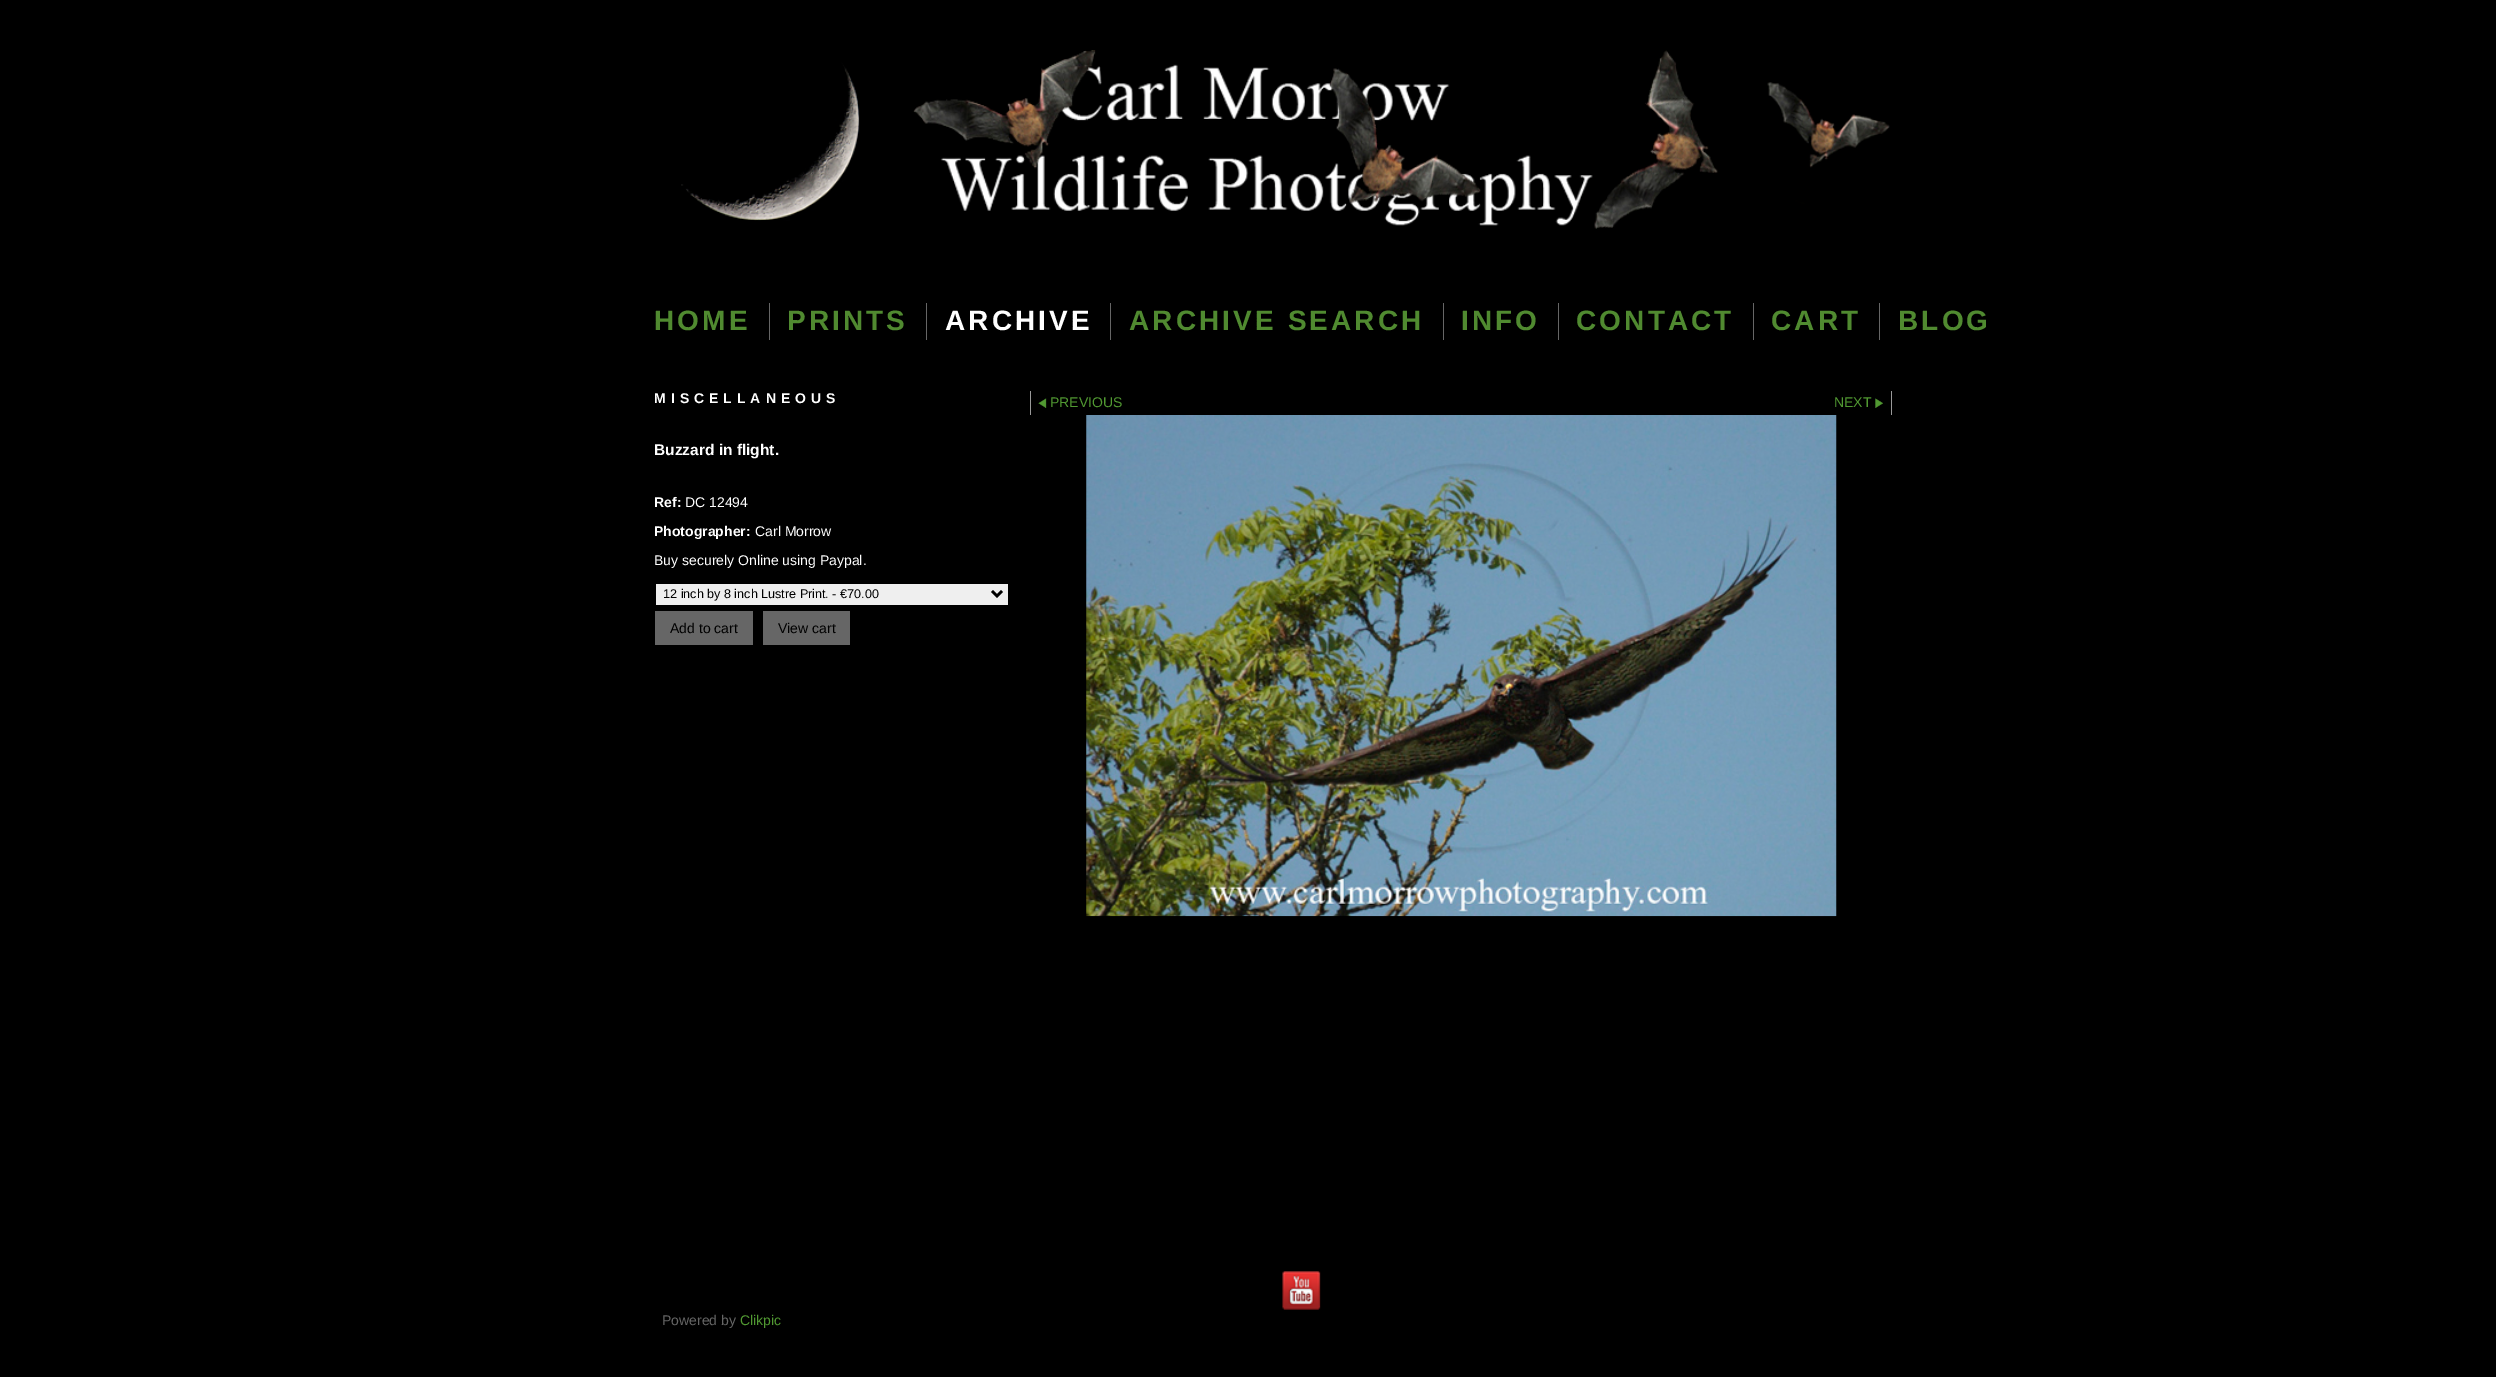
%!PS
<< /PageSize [2496 1377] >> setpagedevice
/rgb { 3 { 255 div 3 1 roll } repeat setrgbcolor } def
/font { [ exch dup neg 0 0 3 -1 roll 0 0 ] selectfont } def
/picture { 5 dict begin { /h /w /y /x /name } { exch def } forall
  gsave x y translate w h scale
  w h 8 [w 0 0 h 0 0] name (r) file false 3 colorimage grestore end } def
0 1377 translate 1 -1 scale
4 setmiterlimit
0 0 0 rgb
0 0 2496 1377 rectfill
(img/1.rgb) 681 50 1209 179 picture
[
  [769 303 1 37 102 102 102]
  [926 303 1 37 102 102 102]
  [1110 303 1 37 102 102 102]
  [1443 303 1 37 102 102 102]
  [1558 303 1 37 102 102 102]
  [1753 303 1 37 102 102 102]
  [1879 303 1 37 102 102 102]
  [656 584 352 21 239 239 239]
] { aload pop rgb rectfill } forall
0 0 0 rgb
2.5 setlinewidth
992 591 moveto 997 596 lineto 1002 591 lineto stroke
[
  [655 611 98 34 102 102 102]
  [763 611 87 34 102 102 102]
  [1030 391 1 24 153 153 153]
] { aload pop rgb rectfill } forall
(img/2.rgb) 1038 398 9 10 picture
1891 391 1 24 rectfill
(img/3.rgb) 1875 398 8 10 picture
(img/4.rgb) 1086 415 751 502 picture
(img/5.rgb) 1282 1271 39 39 picture
/LiberationSans-Bold 28 font
80 138 48 rgb
654 330 moveto 3.1 0 (HOME) ashow
787 330 moveto 3.1 0 (PRINTS) ashow
255 255 255 rgb
945 330 moveto 3.1 0 (ARCHIVE) ashow
80 138 48 rgb
1129 330 moveto 3.1 0 (ARCHIVE SEARCH) ashow
1461 330 moveto 3.1 0 (INFO) ashow
1576 330 moveto 3.1 0 (CONTACT) ashow
1771 330 moveto 3.1 0 (CART) ashow
1898 330 moveto 3.1 0 (BLOG) ashow
/LiberationSans-Bold 14 font
255 255 255 rgb
654 403 moveto 5 0 (MISCELLANEOUS) ashow
/LiberationSans-Bold 15.5 font
654 455 moveto (Buzzard in flight.) show
/LiberationSans-Bold 14 font
654 507 moveto (Ref:) show
/LiberationSans-Regular 14 font
685 507 moveto (DC 12494) show
/LiberationSans-Bold 14 font
654 536 moveto (Photographer:) show
/LiberationSans-Regular 14 font
755 536 moveto (Carl Morrow) show
654 565 moveto (Buy securely Online using Paypal.) show
/LiberationSans-Regular 12.6 font
0 0 0 rgb
663 598 moveto (12 inch by 8 inch Lustre Print. - €70.00) show
/LiberationSans-Regular 14 font
670 633 moveto (Add to cart) show
778 633 moveto (View cart) show
81 153 50 rgb
1050 407 moveto (PREVIOUS) show
1834 407 moveto (NEXT) show
102 102 102 rgb
662 1325 moveto (Powered by) show
81 153 50 rgb
740 1325 moveto (Clikpic) show
showpage
